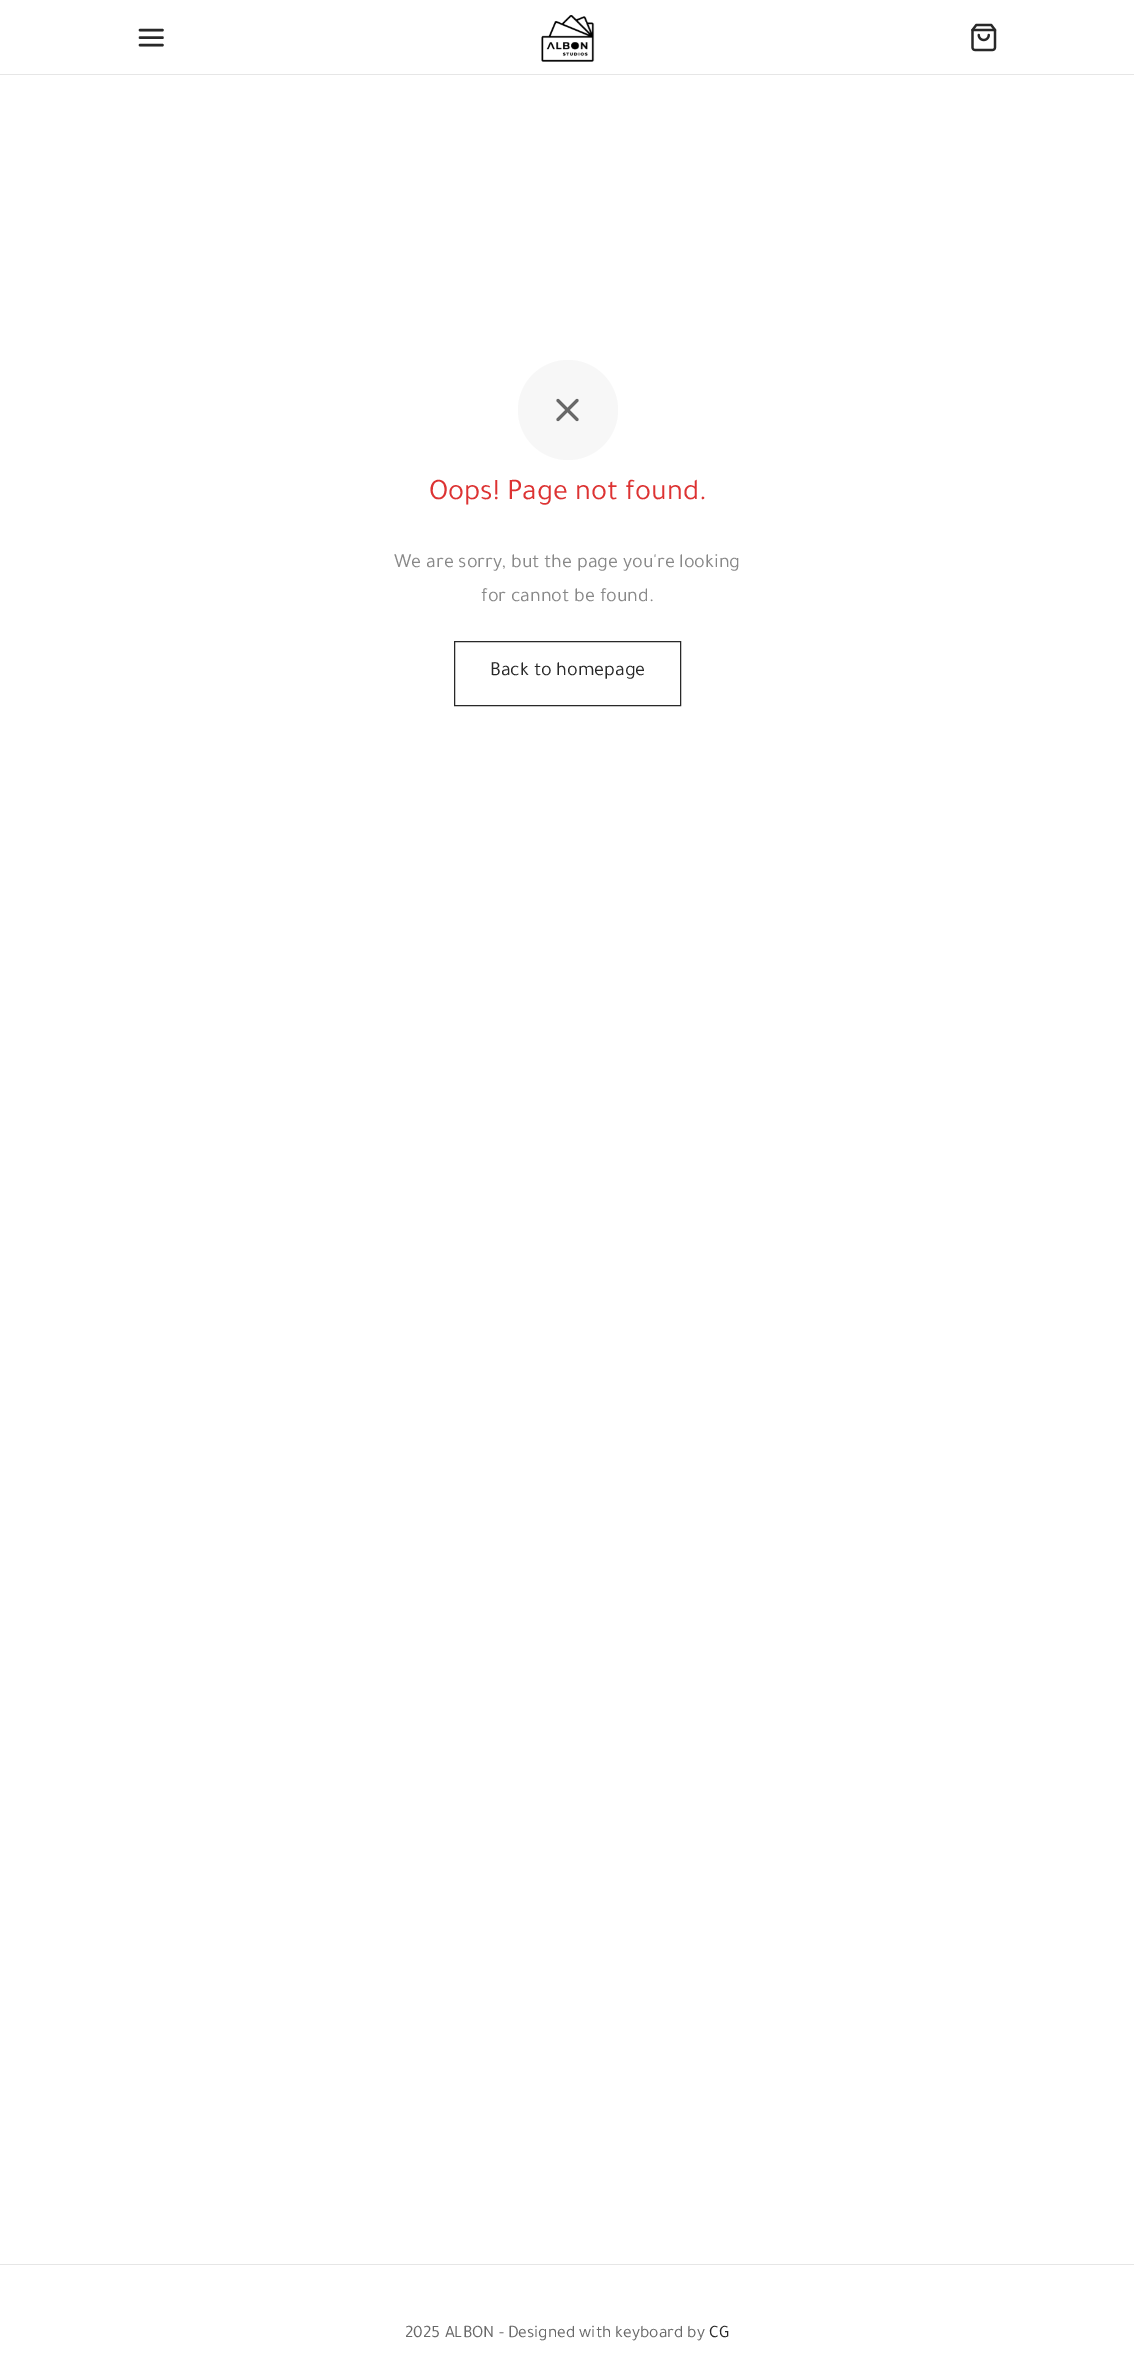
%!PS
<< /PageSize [1134 2374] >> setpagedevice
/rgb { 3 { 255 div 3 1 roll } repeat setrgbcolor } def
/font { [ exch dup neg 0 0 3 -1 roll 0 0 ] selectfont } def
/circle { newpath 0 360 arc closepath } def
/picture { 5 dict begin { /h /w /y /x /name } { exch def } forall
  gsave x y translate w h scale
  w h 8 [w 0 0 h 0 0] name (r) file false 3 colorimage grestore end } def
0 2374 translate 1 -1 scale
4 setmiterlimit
255 255 255 rgb
0 0 1134 2374 rectfill
40 40 40 rgb
2.5 setlinewidth
1 setlinecap
1 setlinejoin
140 37.5 moveto 162.5 37.5 lineto 140 30 moveto 162.5 30 lineto 140 45 moveto 162.5 45 lineto stroke
(img/1.rgb) 541 15 54 47 picture
(img/2.rgb) 971 23 26 29 picture
230 230 230 rgb
0 74 1134 1 rectfill
247 247 247 rgb
568 410 50 circle fill
104 104 104 rgb
3.1 setlinewidth
577 400.5 moveto 558 419.5 lineto 558 400.5 moveto 577 419.5 lineto stroke
40 40 40 rgb
1 setlinewidth
0 setlinecap
0 setlinejoin
454.5 641.5 226 64 rectstroke
230 230 230 rgb
0 2264 1134 1 rectfill
/Tajawal-Regular 30 font
221 51 51 rgb
429 499 moveto (Oops! Page not found.) show
/Tajawal-Regular 20 font
136 136 136 rgb
394 567 moveto (We are sorry, but the page you're looking) show
481 601 moveto (for cannot be found.) show
40 40 40 rgb
490 675 moveto (Back to homepage) show
/Tajawal-Regular 17.5 font
104 104 104 rgb
405 2337 moveto (2025 ALBON - Designed with keyboard by) show
40 40 40 rgb
709 2337 moveto (CG) show
showpage
